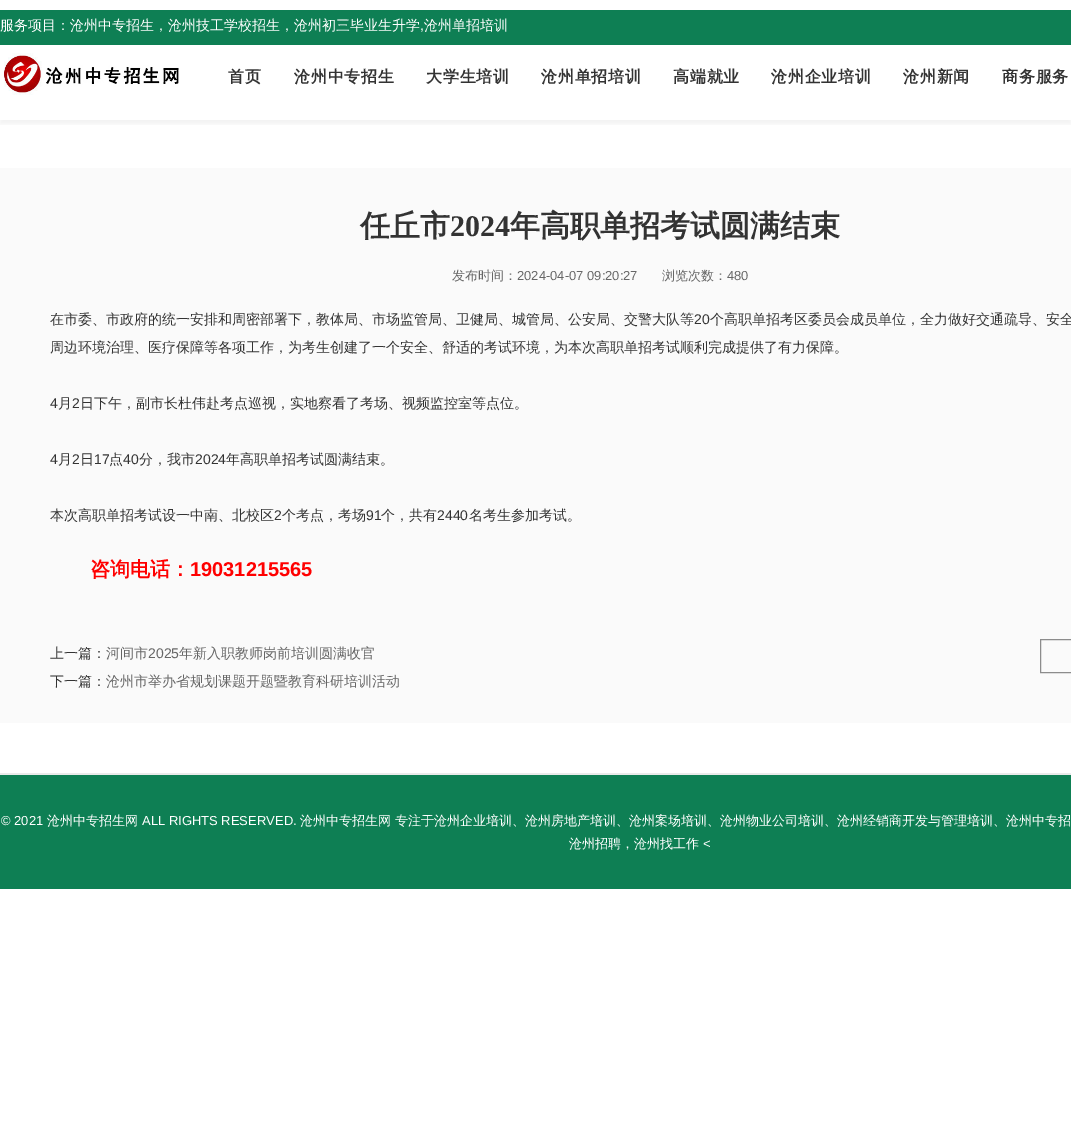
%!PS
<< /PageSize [1071 1124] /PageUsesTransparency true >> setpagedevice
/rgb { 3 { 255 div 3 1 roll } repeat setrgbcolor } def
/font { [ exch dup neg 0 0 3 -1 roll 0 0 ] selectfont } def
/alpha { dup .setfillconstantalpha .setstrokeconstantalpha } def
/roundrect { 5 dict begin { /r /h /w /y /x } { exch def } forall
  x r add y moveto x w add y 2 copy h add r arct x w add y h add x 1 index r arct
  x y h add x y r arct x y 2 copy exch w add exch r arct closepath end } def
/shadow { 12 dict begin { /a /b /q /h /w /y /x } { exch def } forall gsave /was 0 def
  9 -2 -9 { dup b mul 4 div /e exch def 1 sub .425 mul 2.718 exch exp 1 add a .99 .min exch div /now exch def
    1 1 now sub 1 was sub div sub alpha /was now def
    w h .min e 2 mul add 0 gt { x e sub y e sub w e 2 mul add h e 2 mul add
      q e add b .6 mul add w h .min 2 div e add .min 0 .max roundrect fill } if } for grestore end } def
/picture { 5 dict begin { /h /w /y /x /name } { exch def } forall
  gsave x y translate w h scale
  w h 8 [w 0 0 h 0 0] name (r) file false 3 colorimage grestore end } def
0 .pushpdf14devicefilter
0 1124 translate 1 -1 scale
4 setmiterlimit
255 255 255 rgb
0 0 1071 1124 rectfill
gsave
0 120 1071 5 rectclip
0 0 0 rgb
0 4 1071 120 0 3 0.06 shadow
grestore
14 127 84 rgb
0 10 1071 35 rectfill
(img/1.rgb) 4 53 175 42 picture
250 250 250 rgb
0 168 1071 555 rectfill
140 140 140 rgb
1040.5 639.5 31 33 rectstroke
14 127 84 rgb
0 775 1071 114 rectfill
234 234 234 rgb
0 773 1071 2 rectfill
/WenQuanYiZenHei-Medium 14 font
255 255 255 rgb
0 30 moveto (服务项目：沧州中专招生，沧州技工学校招生，沧州初三毕业生升学) show
/LiberationSans-Regular 14 font
420 30 moveto (,) show
/WenQuanYiZenHei-Medium 14 font
424 30 moveto (沧州单招培训) show
/WenQuanYiZenHei-Bold 16 font
51 51 51 rgb
228 82 moveto 0.75 0 (首页) ashow
294 82 moveto 0.75 0 (沧州中专招生) ashow
426 82 moveto 0.75 0 (大学生培训) ashow
541 82 moveto 0.75 0 (沧州单招培训) ashow
673 82 moveto 0.75 0 (高端就业) ashow
771 82 moveto 0.75 0 (沧州企业培训) ashow
903 82 moveto 0.75 0 (沧州新闻) ashow
1002 82 moveto 0.75 0 (商务服务) ashow
/WenQuanYiZenHei-Bold 30 font
360 236 moveto (任丘市) show
/LiberationSerif-Bold 30 font
450 236 moveto (2024) show
/WenQuanYiZenHei-Bold 30 font
510 236 moveto (年高职单招考试圆满结束) show
/WenQuanYiZenHei-Medium 13 font
102 102 102 rgb
452 280 moveto (发布时间：) show
/LiberationSans-Regular 13 font
517 280 moveto (2024-04-07 09:20:27) show
/WenQuanYiZenHei-Medium 13 font
662 280 moveto (浏览次数：) show
/LiberationSans-Regular 13 font
727 280 moveto (480) show
/WenQuanYiZenHei-Medium 14 font
51 51 51 rgb
50 324 moveto (在市委、市政府的统一安排和周密部署下，教体局、市场监管局、卫健局、城管局、公安局、交警大队等) show
/LiberationSans-Regular 14 font
694 324 moveto (20) show
/WenQuanYiZenHei-Medium 14 font
710 324 moveto (个高职单招考区委员会成员单位，全力做好交通疏导、安全) show
50 352 moveto (周边环境治理、医疗保障等各项工作，为考生创建了一个安全、舒适的考试环境，为本次高职单招考试顺利完成提供了有力保障。) show
/LiberationSans-Regular 14 font
50 408 moveto (4) show
/WenQuanYiZenHei-Medium 14 font
58 408 moveto (月) show
/LiberationSans-Regular 14 font
72 408 moveto (2) show
/WenQuanYiZenHei-Medium 14 font
80 408 moveto (日下午，副市长杜伟赴考点巡视，实地察看了考场、视频监控室等点位。) show
/LiberationSans-Regular 14 font
50 464 moveto (4) show
/WenQuanYiZenHei-Medium 14 font
58 464 moveto (月) show
/LiberationSans-Regular 14 font
72 464 moveto (2) show
/WenQuanYiZenHei-Medium 14 font
80 464 moveto (日) show
/LiberationSans-Regular 14 font
94 464 moveto (17) show
/WenQuanYiZenHei-Medium 14 font
109 464 moveto (点) show
/LiberationSans-Regular 14 font
123 464 moveto (40) show
/WenQuanYiZenHei-Medium 14 font
139 464 moveto (分，我市) show
/LiberationSans-Regular 14 font
195 464 moveto (2024) show
/WenQuanYiZenHei-Medium 14 font
226 464 moveto (年高职单招考试圆满结束。) show
50 520 moveto (本次高职单招考试设一中南、北校区) show
/LiberationSans-Regular 14 font
274 520 moveto (2) show
/WenQuanYiZenHei-Medium 14 font
282 520 moveto (个考点，考场) show
/LiberationSans-Regular 14 font
366 520 moveto (91) show
/WenQuanYiZenHei-Medium 14 font
381 520 moveto (个，共有) show
/LiberationSans-Regular 14 font
437 520 moveto (2440) show
/WenQuanYiZenHei-Medium 14 font
469 520 moveto (名考生参加考试。) show
/WenQuanYiZenHei-Bold 20 font
255 0 0 rgb
90 576 moveto (咨询电话：) show
/LiberationSans-Bold 20 font
190 576 moveto (19031215565) show
/WenQuanYiZenHei-Medium 14 font
51 51 51 rgb
50 658 moveto (上一篇：) show
102 102 102 rgb
106 658 moveto (河间市) show
/LiberationSans-Regular 14 font
148 658 moveto (2025) show
/WenQuanYiZenHei-Medium 14 font
179 658 moveto (年新入职教师岗前培训圆满收官) show
51 51 51 rgb
50 686 moveto (下一篇：) show
102 102 102 rgb
106 686 moveto (沧州市举办省规划课题开题暨教育科研培训活动) show
/LiberationSans-Regular 13 font
255 255 255 rgb
1 825 moveto (© 2021) show
/WenQuanYiZenHei-Medium 13 font
47 825 moveto (沧州中专招生网) show
/LiberationSans-Regular 13 font
142 825 moveto (ALL RIGHTS RESERVED.) show
/WenQuanYiZenHei-Medium 13 font
300 825 moveto (沧州中专招生网 专注于沧州企业培训、沧州房地产培训、沧州案场培训、沧州物业公司培训、沧州经销商开发与管理培训、沧州中专招) show
569 848 moveto (沧州招聘，沧州找工作) show
/LiberationSans-Regular 13 font
703 848 moveto (<) show
.poppdf14devicefilter showpage
